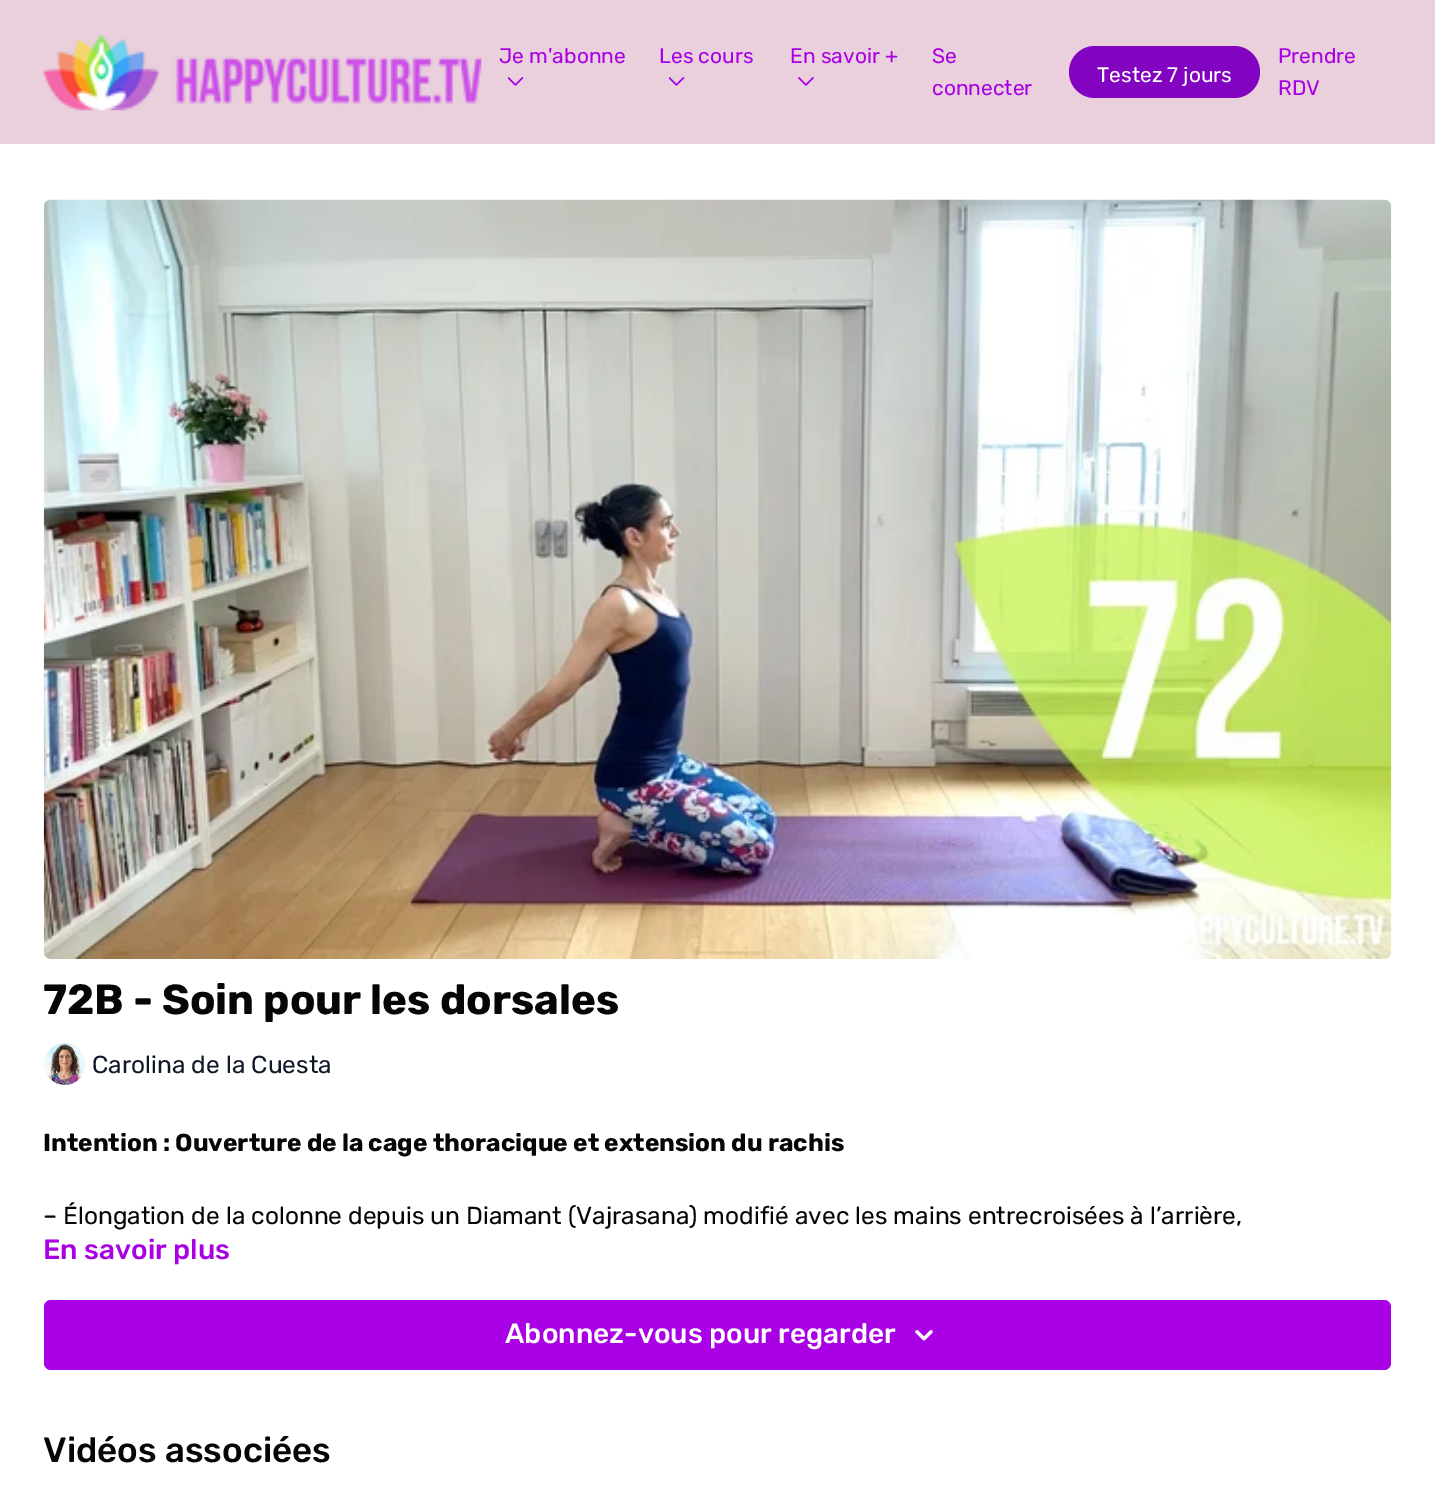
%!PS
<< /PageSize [1435 1489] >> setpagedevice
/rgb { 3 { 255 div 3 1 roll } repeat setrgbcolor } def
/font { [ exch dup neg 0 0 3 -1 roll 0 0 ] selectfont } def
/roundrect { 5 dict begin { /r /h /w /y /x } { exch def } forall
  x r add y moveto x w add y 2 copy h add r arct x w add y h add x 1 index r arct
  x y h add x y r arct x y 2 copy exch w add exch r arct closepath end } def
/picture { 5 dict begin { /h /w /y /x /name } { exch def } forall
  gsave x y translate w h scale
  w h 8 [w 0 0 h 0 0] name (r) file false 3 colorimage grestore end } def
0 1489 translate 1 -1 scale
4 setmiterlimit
255 255 255 rgb
0 0 1435 1489 rectfill
233 208 220 rgb
0 0 1435 144 rectfill
(img/1.rgb) 43 35 439 76 picture
(img/2.rgb) 508 77 16 9 picture
(img/2.rgb) 669 77 16 9 picture
(img/3.rgb) 798 77 16 9 picture
130 4 193 rgb
1069 46 191 52 26 roundrect fill
(img/4.rgb) 43 199 1349 760 picture
(img/5.rgb) 44 1043 42 42 picture
169 0 230 rgb
44 1300 1347 70 7 roundrect fill
(img/6.rgb) 915 1330 18 11 picture
/Rubik-Regular 21 font
[
  [(Je m'abonne) 499 63]
  [(Les cours) 659 63]
  [(En savoir +) 790 63]
  [(Se) 932 63]
  [(connecter) 932 95]
] { aload pop moveto show } forall
255 255 255 rgb
1097 82 moveto (Testez 7 jours) show
169 0 230 rgb
1278 63 moveto (Prendre) show
1278 95 moveto (RDV) show
/Rubik-Bold 42 font
6 6 6 rgb
43 1014 moveto (72B - Soin pour les dorsales) show
/Rubik-Regular 24.5 font
17 24 39 rgb
92 1073 moveto (Carolina de la Cuesta) show
/Rubik-Bold 24.5 font
6 6 6 rgb
43 1151 moveto (Intention : Ouverture de la cage thoracique et extension du rachis) show
/Rubik-Regular 24.5 font
43 1224 moveto (– Élongation de la colonne depuis un Diamant \(Vajrasana\) modifié avec les mains entrecroisées à l’arrière,) show
/Rubik-Medium 28 font
169 0 230 rgb
43 1259 moveto (En savoir plus) show
255 255 255 rgb
505 1343 moveto (Abonnez-vous pour regarder) show
/Rubik-Medium 35 font
6 6 6 rgb
43 1462 moveto (Vidéos associées) show
showpage
